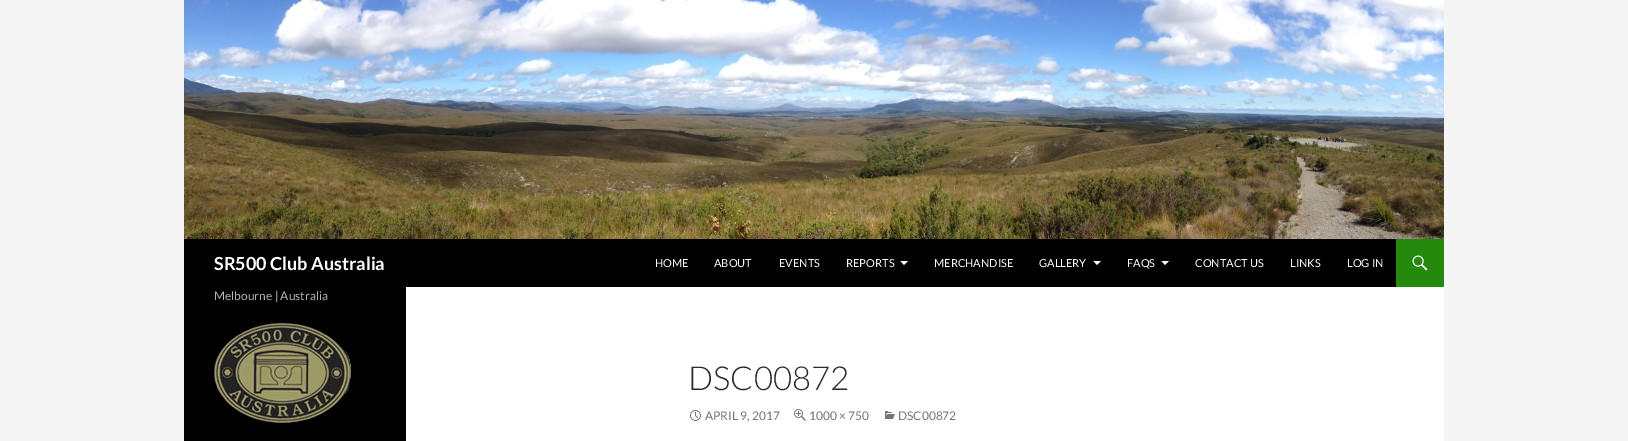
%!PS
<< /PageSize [1628 441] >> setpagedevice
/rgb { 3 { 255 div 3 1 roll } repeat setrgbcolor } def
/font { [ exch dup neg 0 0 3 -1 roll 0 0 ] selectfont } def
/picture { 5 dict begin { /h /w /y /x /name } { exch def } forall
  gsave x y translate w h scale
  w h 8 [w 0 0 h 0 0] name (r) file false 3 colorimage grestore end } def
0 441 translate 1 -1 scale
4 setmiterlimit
245 245 245 rgb
0 0 1628 441 rectfill
255 255 255 rgb
406 287 1038 154 rectfill
(img/1.rgb) 184 0 1260 239 picture
0 0 0 rgb
184 239 1212 48 rectfill
255 255 255 rgb
900.5 261 moveto 908 261 lineto 904 265 lineto closepath fill
1093.5 261 moveto 1101 261 lineto 1097 265 lineto closepath fill
1161.5 261 moveto 1169 261 lineto 1165 265 lineto closepath fill
36 137 13 rgb
1396 239 48 48 rectfill
(img/2.rgb) 1412 255 16 16 picture
0 0 0 rgb
184 287 222 154 rectfill
(img/3.rgb) 214 323 137 100 picture
(img/4.rgb) 690 410 11 11 picture
(img/5.rgb) 794 409 12 12 picture
(img/6.rgb) 885 411 10 8 picture
/Lato-Bold 18 font
255 255 255 rgb
214 270 moveto (SR500 Club Australia) show
/Lato-Regular 11 font
[
  [(HOME) 655 267]
  [(ABOUT) 714 267]
  [(EVENTS) 779 267]
  [(REPORTS) 846 267]
  [(MERCHANDISE) 934 267]
  [(GALLERY) 1039 267]
  [(FAQS) 1127 267]
  [(CONTACT US) 1195 267]
  [(LINKS) 1290 267]
  [(LOG IN) 1347 267]
] { aload pop moveto show } forall
/Lato-Regular 12 font
179 179 179 rgb
214 300 moveto (Melbourne | Australia) show
/Lato-Light 33 font
43 43 43 rgb
688 390 moveto (DSC00872) show
/Lato-Regular 12 font
118 118 118 rgb
[
  [(APRIL 9, 2017) 705 420]
  [(1000 × 750) 809 420]
  [(DSC00872) 898 420]
] { aload pop moveto show } forall
showpage
